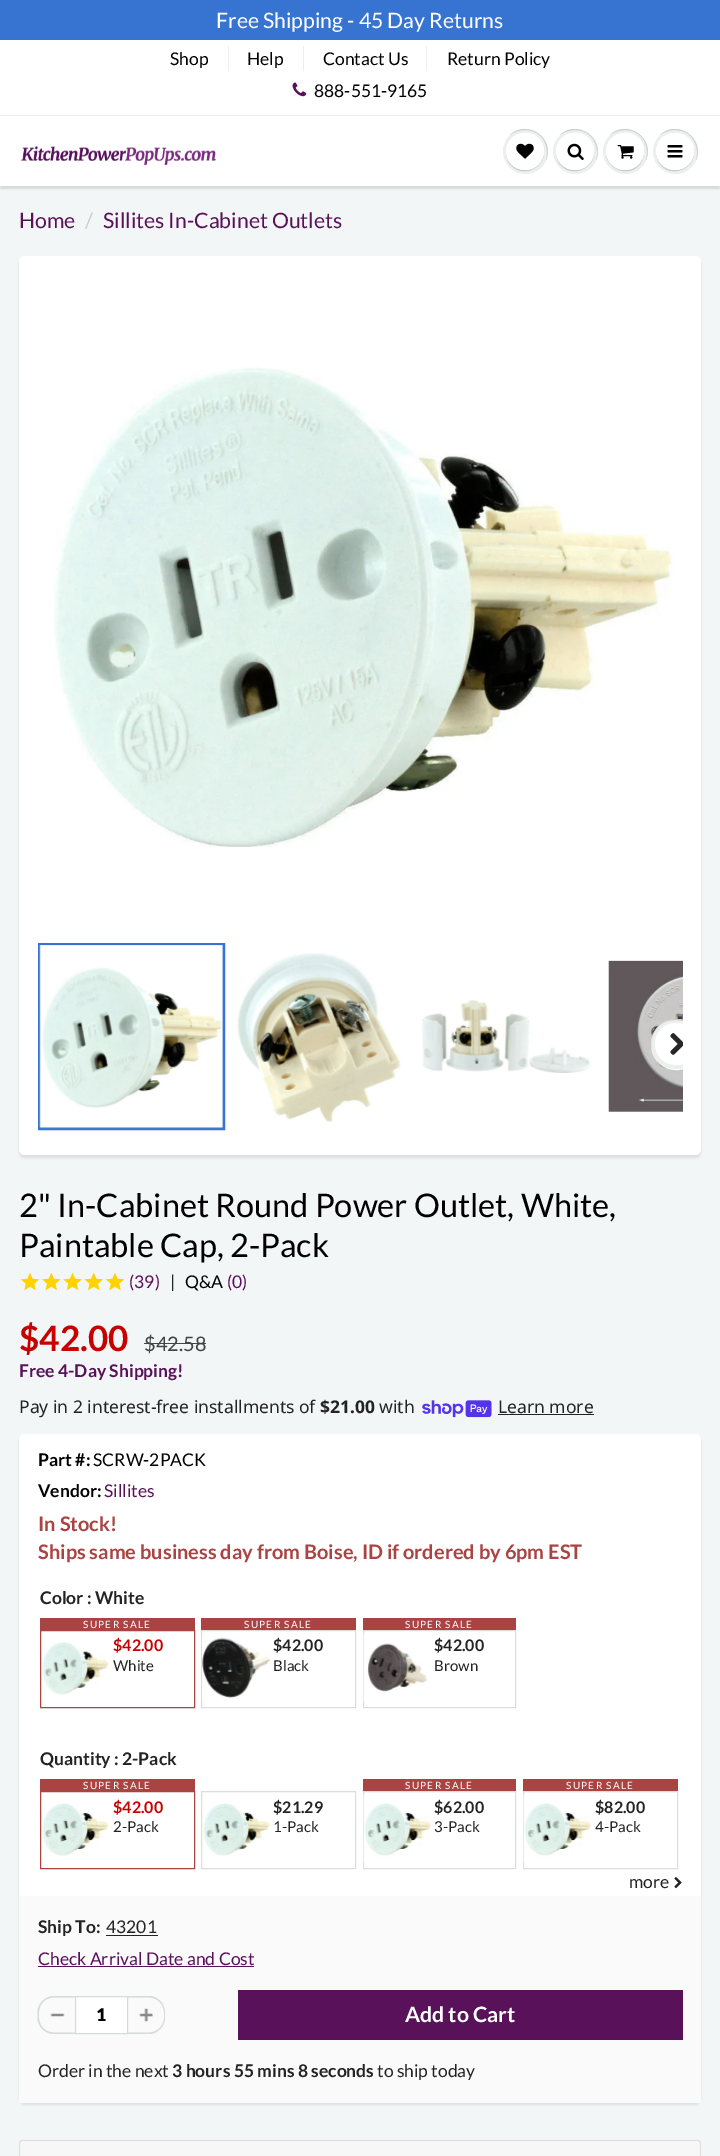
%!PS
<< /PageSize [720 2156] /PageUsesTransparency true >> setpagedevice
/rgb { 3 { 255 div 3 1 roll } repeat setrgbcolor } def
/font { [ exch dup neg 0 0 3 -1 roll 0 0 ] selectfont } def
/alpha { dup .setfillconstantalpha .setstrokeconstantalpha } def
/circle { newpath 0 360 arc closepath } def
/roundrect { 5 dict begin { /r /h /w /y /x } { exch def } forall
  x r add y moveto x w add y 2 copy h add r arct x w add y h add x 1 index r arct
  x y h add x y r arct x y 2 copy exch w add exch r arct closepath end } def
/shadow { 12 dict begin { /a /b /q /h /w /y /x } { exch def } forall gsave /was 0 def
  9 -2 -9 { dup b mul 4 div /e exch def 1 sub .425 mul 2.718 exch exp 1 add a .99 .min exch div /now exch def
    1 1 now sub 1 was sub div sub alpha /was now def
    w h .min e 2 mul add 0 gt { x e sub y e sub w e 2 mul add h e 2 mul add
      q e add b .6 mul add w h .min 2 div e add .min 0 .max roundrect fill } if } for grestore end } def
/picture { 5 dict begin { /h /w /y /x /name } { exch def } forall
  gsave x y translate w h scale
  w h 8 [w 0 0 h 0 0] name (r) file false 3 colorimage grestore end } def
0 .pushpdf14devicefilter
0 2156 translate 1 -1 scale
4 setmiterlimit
255 255 255 rgb
0 0 720 2156 rectfill
[
  [0 0 720 40 55 116 210]
  [228 46 1 25 236 239 239]
  [303 46 1 25 236 239 239]
  [426 46 1 25 236 239 239]
] { aload pop rgb rectfill } forall
(img/1.rgb) 292 82 15 15 picture
243 246 246 rgb
0 186 720 1970 rectfill
gsave
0 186 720 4 rectclip
11 25 28 rgb
0 118 720 71 0 1 0.12 shadow
grestore
236 239 239 rgb
0 115 720 1 rectfill
(img/2.rgb) 21 145 195 20 picture
237 239 239 rgb
525.5 151.5 22.5 circle fill
201 203 203 rgb
525 130 moveto 543 130 550 147 546 160 curveto 555 138 527 119 510 135 curveto 514 132 519 130 525 130 curveto closepath fill
506.5 148.5 moveto 505.5 153 506.5 158.5 509 163 curveto 520.5 180 548 168.5 543.5 148.5 curveto 546.5 167.5 520.5 178.5 509.5 161.5 curveto 507 158 505.5 153 506.5 148.5 curveto closepath fill
255 255 255 rgb
506 133 38 37 18.5 roundrect fill
525 134 moveto 539 134 545 146 543 156 curveto 545 151 544 145 541 141 curveto 529 124 502 136 507 156 curveto 505 146 511 134 525 134 curveto closepath fill
(img/3.rgb) 516 143 18 16 picture
237 239 239 rgb
575.5 151.5 22.5 circle fill
201 203 203 rgb
575 130 moveto 593 130 600 147 596 160 curveto 605 138 577 119 560 135 curveto 564 132 569 130 575 130 curveto closepath fill
556.5 148.5 moveto 555.5 153 556.5 158.5 559 163 curveto 570.5 180 598 168.5 593.5 148.5 curveto 594.5 153 593 158 590.5 161.5 curveto 579.5 178.5 553.5 167.5 556.5 148.5 curveto closepath fill
255 255 255 rgb
556 133 38 37 18.5 roundrect fill
575 134 moveto 589 134 595 146 593 156 curveto 595 151 594 145 591 141 curveto 579 124 552 136 557 156 curveto 555 146 561 134 575 134 curveto closepath fill
(img/4.rgb) 567 143 17 17 picture
237 239 239 rgb
625.5 151.5 22.5 circle fill
201 203 203 rgb
625 130 moveto 643 130 650 147 646 160 curveto 655 138 627 119 610 135 curveto 614 132 619 130 625 130 curveto closepath fill
606.5 148.5 moveto 602 168.5 629.5 180 641 163 curveto 643.5 158.5 644.5 153 643.5 148.5 curveto 646.5 167.5 620.5 178.5 609.5 161.5 curveto 607 158 605.5 153 606.5 148.5 curveto closepath fill
255 255 255 rgb
606 133 38 37 18.5 roundrect fill
625 134 moveto 639 134 645 146 643 156 curveto 645 151 644 145 641 141 curveto 629 124 602 136 607 156 curveto 605 146 611 134 625 134 curveto closepath fill
(img/5.rgb) 617 145 17 14 picture
237 239 239 rgb
675.5 151.5 22.5 circle fill
201 203 203 rgb
675 130 moveto 693 130 700 147 696 160 curveto 705 138 677 119 660 135 curveto 664 132 669 130 675 130 curveto closepath fill
656.5 148.5 moveto 655.5 153 656.5 158.5 659 163 curveto 670.5 180 698 168.5 693.5 148.5 curveto 694.5 153 693 158 690.5 161.5 curveto 679.5 178.5 653.5 167.5 656.5 148.5 curveto closepath fill
255 255 255 rgb
656 133 38 37 18.5 roundrect fill
675 134 moveto 689 134 695 146 693 156 curveto 695 151 694 145 691 141 curveto 679 124 652 136 657 156 curveto 655 146 661 134 675 134 curveto closepath fill
(img/6.rgb) 667 145 16 13 picture
11 25 28 rgb
19 259 682 899 6 1 0.1 shadow
255 255 255 rgb
19 256 682 899 6 roundrect fill
(img/7.rgb) 54 367 619 480 picture
55 116 210 rgb
3 setlinewidth
39.5 944.5 184 184 rectstroke
(img/8.rgb) 39 945 184 184 picture
(img/9.rgb) 237 953 164 169 picture
(img/10.rgb) 422 999 169 74 picture
(img/11.rgb) 608 960 75 152 picture
gsave
38 926 645 204 rectclip
255 255 255 rgb
652 1039 moveto 646 1062 674 1080 692 1064 curveto 697 1060 700 1055 701 1049 curveto 694 1081 646 1071 652 1039 curveto closepath fill
237 239 239 rgb
676 1044 25 circle fill
201 203 203 rgb
676 1020 moveto 695 1020 703 1036 700 1050 curveto 702 1043 701 1036 697 1030 curveto 681 1007 646 1023 652 1050 curveto 649 1036 657 1020 676 1020 curveto closepath fill
255 255 255 rgb
655 1023 43 42 21 roundrect fill
grestore
(img/12.rgb) 670 1033 13 22 picture
(img/13.rgb) 20 1272 20 19 picture
(img/14.rgb) 42 1272 19 19 picture
(img/15.rgb) 63 1272 19 19 picture
(img/16.rgb) 84 1272 19 19 picture
(img/13.rgb) 105 1272 20 19 picture
68 68 68 rgb
144 1343 62 1 rectfill
(img/17.rgb) 422 1400 70 18 picture
35 35 35 rgb
498 1414 96 1 rectfill
11 25 28 rgb
19 1436 682 669 6 1 0.1 shadow
255 255 255 rgb
19 1434 682 669 6 roundrect fill
169 68 66 rgb
40 1618 155 12 rectfill
1 setlinewidth
40.5 1630.5 154 77 rectstroke
(img/18.rgb) 42 1642 67 53 picture
201 1618 155 12 rectfill
221 221 221 rgb
201.5 1630.5 154 77 rectstroke
(img/19.rgb) 202 1637 69 62 picture
169 68 66 rgb
363 1618 153 12 rectfill
221 221 221 rgb
363.5 1630.5 152 77 rectstroke
(img/20.rgb) 363 1634 65 68 picture
169 68 66 rgb
40 1779 155 12 rectfill
40.5 1791.5 154 77 rectstroke
(img/21.rgb) 42 1803 67 53 picture
221 221 221 rgb
201.5 1791.5 154 77 rectstroke
(img/22.rgb) 203 1803 68 53 picture
169 68 66 rgb
363 1779 153 12 rectfill
221 221 221 rgb
363.5 1791.5 152 77 rectstroke
(img/23.rgb) 363 1795 69 68 picture
169 68 66 rgb
523 1779 155 12 rectfill
221 221 221 rgb
523.5 1791.5 154 77 rectstroke
(img/24.rgb) 523 1795 69 68 picture
(img/25.rgb) 674 1877 8 12 picture
[
  [19 1896 682 207 250 250 250]
  [106 1935 52 1 35 35 35]
  [38 1966 216 1 89 17 90]
] { aload pop rgb rectfill } forall
(img/26.rgb) 50 2013 15 4 picture
215 219 219 rgb
54 1996 moveto 75 1996 lineto 75 2034 lineto 54 2034 lineto 45 2034 37.5 2026.5 37.5 2017.5 curveto 37.5 2012.5 lineto 37.5 2003.5 45 1996 54 1996 curveto closepath 54 1997.5 moveto 75 1997.5 lineto 75 2032.5 lineto 54 2032.5 lineto 45.5 2032.5 39 2026 39 2017.5 curveto 39 2012.5 lineto 39 2004 45.5 1997.5 54 1997.5 curveto closepath eofill
255 255 255 rgb
75.5 1996.5 moveto 127.5 1996.5 lineto 127.5 2033.5 lineto 75.5 2033.5 lineto closepath gsave fill grestore
215 219 219 rgb
stroke
(img/27.rgb) 139 2008 14 14 picture
127.5 1996 moveto 149 1996 lineto 157.5 1996 165 2003.5 165 2012.5 curveto 165 2017.5 lineto 165 2026.5 157.5 2034 149 2034 curveto 127.5 2034 lineto closepath 127.5 1997.5 moveto 149 1997.5 lineto 157 1997.5 164 2004 164 2012.5 curveto 164 2017.5 lineto 164 2026 157 2032.5 149 2032.5 curveto 127.5 2032.5 lineto closepath eofill
89 17 90 rgb
238 1990 445 50 rectfill
247 247 247 rgb
22.5 2141 moveto 697.5 2141 lineto 699 2141 700 2142 700 2143.5 curveto 700 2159 lineto 20 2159 lineto 20 2143.5 lineto 20 2142 21 2141 22.5 2141 curveto closepath fill
221 221 221 rgb
22 2140 moveto 698 2140 lineto 700 2140 701 2142 701 2144 curveto 701 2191 lineto 19 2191 lineto 19 2144 lineto 19 2142 20 2140 22 2140 curveto closepath 22 2141 moveto 698 2141 lineto 699 2141 700 2142 700 2144 curveto 700 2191 lineto 20 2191 lineto 20 2144 lineto 20 2142 21 2141 22 2141 curveto closepath eofill
/Lato-Regular 21.25 font
255 255 255 rgb
216 28 moveto (Free Shipping - 45 Day Returns) show
/Lato-Regular 17.5 font
0 0 0 rgb
[
  [(Shop) 170 65]
  [(Help) 247 65]
  [(Contact Us) 323 65]
  [(Return Policy) 447 65]
  [(888-551-9165) 314 97]
] { aload pop moveto show } forall
/Lato-Regular 21.25 font
89 17 90 rgb
19 228 moveto (Home) show
204 204 204 rgb
85 228 moveto (/) show
89 17 90 rgb
103 228 moveto (Sillites In-Cabinet Outlets) show
/Lato-Regular 32.5 font
0 0 0 rgb
19 1217 moveto (2" In-Cabinet Round Power Outlet, White,) show
19 1257 moveto (Paintable Cap, 2-Pack) show
/Lato-Regular 17.5 font
89 17 90 rgb
129 1288 moveto (\(39\)) show
35 35 35 rgb
170 1288 moveto (|) show
0 0 0 rgb
185 1288 moveto (Q&A) show
89 17 90 rgb
227 1288 moveto (\(0\)) show
/Lato-Bold 35 font
199 0 0 rgb
19 1351 moveto ($42.00) show
/Lato-Regular 20 font
68 68 68 rgb
144 1351 moveto ($42.58) show
/Lato-Bold 17.5 font
89 17 90 rgb
19 1377 moveto (Free 4-Day Shipping!) show
/NotoSans-Regular 17.5 font
35 35 35 rgb
19 1413 moveto (Pay in 2 interest-free installments of) show
/NotoSans-Bold 17.5 font
320 1413 moveto ($21.00) show
/NotoSans-Regular 17.5 font
379 1413 moveto (with) show
498 1413 moveto (Learn more) show
/Lato-Bold 17.5 font
0 0 0 rgb
38 1466 moveto (Part #:) show
/Lato-Regular 17.5 font
93 1466 moveto (SCRW-2PACK) show
/Lato-Bold 17.5 font
38 1497 moveto (Vendor:) show
/Lato-Regular 17.5 font
89 17 90 rgb
104 1497 moveto (Sillites) show
/Lato-Bold 20 font
169 68 66 rgb
38 1531 moveto (In Stock!) show
38 1559 moveto (Ships same business day from Boise, ID if ordered by 6pm EST) show
/Lato-Bold 17.5 font
35 35 35 rgb
40 1604 moveto (Color : White) show
/Lato-Regular 10 font
255 255 255 rgb
83 1628 moveto 1.25 0 (SUPER SALE) ashow
/Lato-Bold 16 font
199 0 0 rgb
113 1651 moveto ($42.00) show
/Lato-Regular 15 font
35 35 35 rgb
113 1671 moveto (White) show
/Lato-Regular 10 font
255 255 255 rgb
244 1628 moveto 1.25 0 (SUPER SALE) ashow
/Lato-Bold 16 font
35 35 35 rgb
273 1651 moveto ($42.00) show
/Lato-Regular 15 font
273 1671 moveto (Black) show
/Lato-Regular 10 font
255 255 255 rgb
405 1628 moveto 1.25 0 (SUPER SALE) ashow
/Lato-Bold 16 font
35 35 35 rgb
434 1651 moveto ($42.00) show
/Lato-Regular 15 font
434 1671 moveto (Brown) show
/Lato-Bold 17.5 font
40 1765 moveto (Quantity : 2-Pack) show
/Lato-Regular 10 font
255 255 255 rgb
83 1789 moveto 1.25 0 (SUPER SALE) ashow
/Lato-Bold 16 font
199 0 0 rgb
113 1813 moveto ($42.00) show
/Lato-Regular 15 font
35 35 35 rgb
113 1832 moveto (2-Pack) show
/Lato-Bold 16 font
273 1813 moveto ($21.29) show
/Lato-Regular 15 font
273 1832 moveto (1-Pack) show
/Lato-Regular 10 font
255 255 255 rgb
405 1789 moveto 1.25 0 (SUPER SALE) ashow
/Lato-Bold 16 font
35 35 35 rgb
434 1813 moveto ($62.00) show
/Lato-Regular 15 font
434 1832 moveto (3-Pack) show
/Lato-Regular 10 font
255 255 255 rgb
566 1789 moveto 1.25 0 (SUPER SALE) ashow
/Lato-Bold 16 font
35 35 35 rgb
595 1813 moveto ($82.00) show
/Lato-Regular 15 font
595 1832 moveto (4-Pack) show
/Lato-Regular 17.5 font
629 1888 moveto (more) show
/Lato-Bold 17.5 font
38 1933 moveto (Ship To:) show
/Lato-Regular 17.5 font
106 1933 moveto (43201) show
89 17 90 rgb
38 1965 moveto (Check Arrival Date and Cost) show
/Lato-Black 17.5 font
0 0 0 rgb
96 2021 moveto (1) show
/Lato-Bold 21.25 font
255 255 255 rgb
405 2022 moveto (Add to Cart) show
/Lato-Regular 17.5 font
35 35 35 rgb
38 2077 moveto (Order in the next) show
/Lato-Bold 17.5 font
172 2077 moveto (3 hours 55 mins 8 seconds) show
/Lato-Regular 17.5 font
377 2077 moveto (to ship today) show
.poppdf14devicefilter showpage
